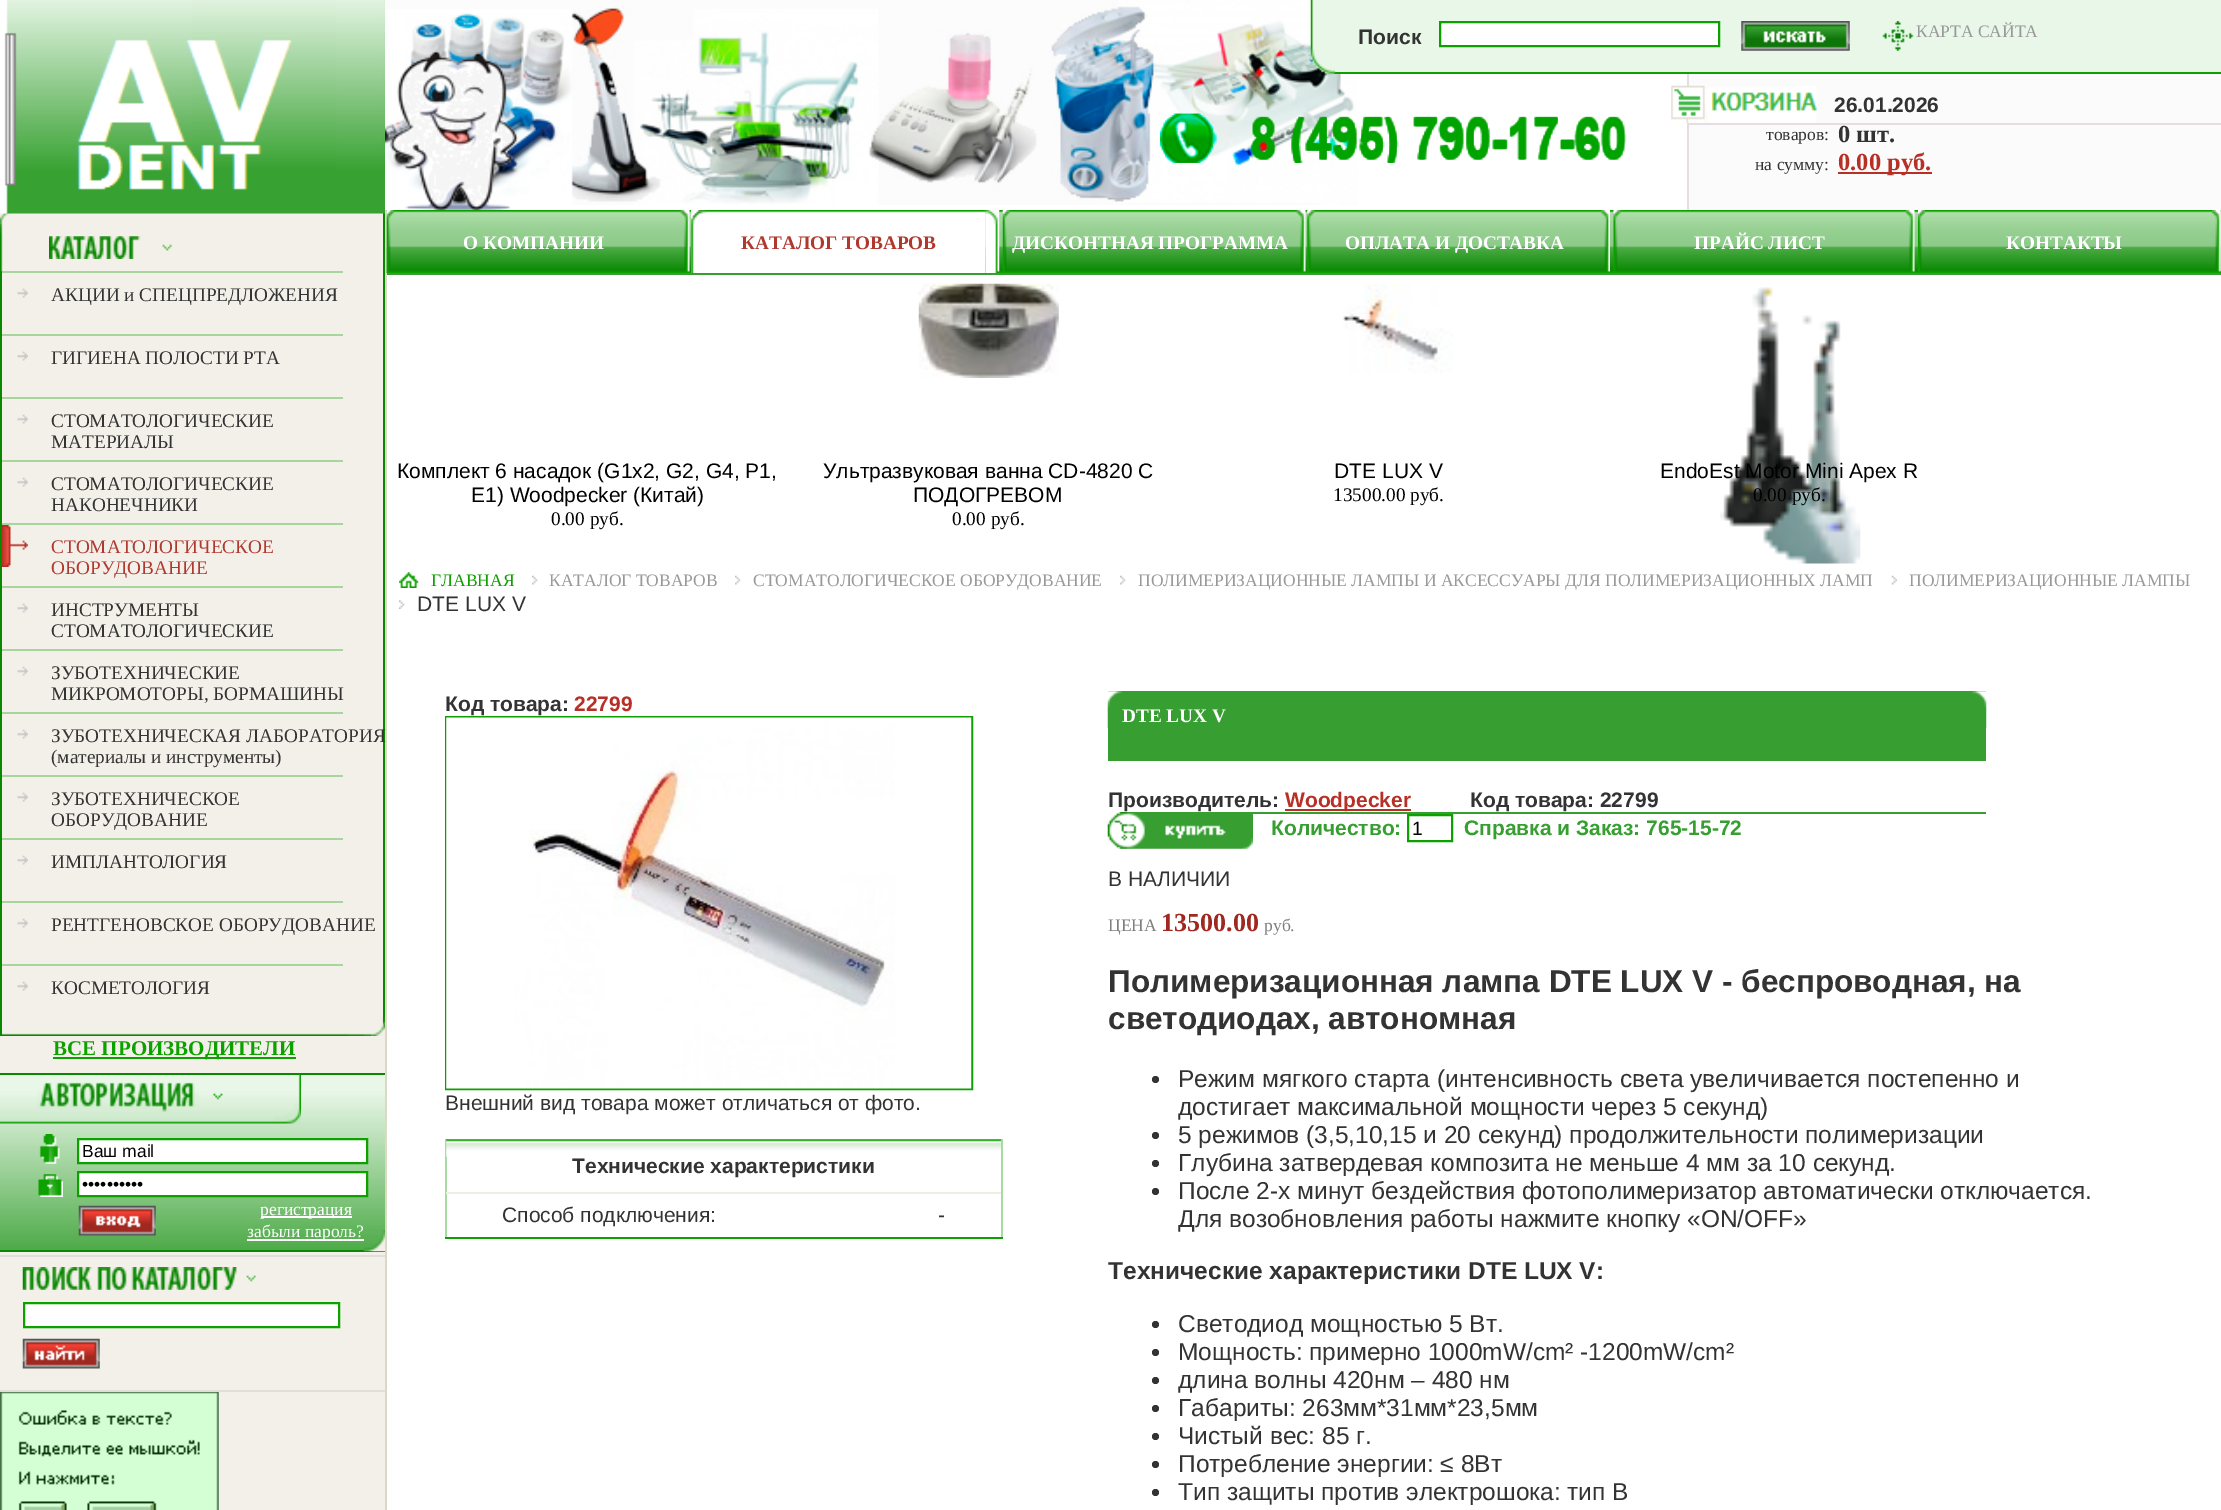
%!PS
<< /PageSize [2221 1510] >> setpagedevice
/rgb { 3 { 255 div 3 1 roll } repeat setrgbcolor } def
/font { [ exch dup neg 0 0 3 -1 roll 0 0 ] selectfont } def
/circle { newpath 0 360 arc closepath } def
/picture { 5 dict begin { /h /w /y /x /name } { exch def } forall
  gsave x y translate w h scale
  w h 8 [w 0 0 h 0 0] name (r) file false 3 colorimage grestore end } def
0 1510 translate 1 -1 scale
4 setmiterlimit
255 255 255 rgb
0 0 2221 1510 rectfill
(img/1.rgb) 385 0 972 205 picture
243 239 233 rgb
0 213 385 1297 rectfill
(img/10.rgb) 0 213 62 58 picture
8 135 0 rgb
383 210 2 817 rectfill
(img/2.rgb) 0 0 385 214 picture
233 247 232 rgb
1335 0 886 72 rectfill
13 160 0 rgb
1334 72 887 2 rectfill
(img/3.rgb) 1310 0 26 74 picture
255 255 255 rgb
1440 22 moveto 1719 22 lineto 1719 46 lineto 1440 46 lineto closepath gsave fill grestore
13 161 0 rgb
2 setlinewidth
stroke
(img/4.rgb) 1741 21 109 30 picture
(img/5.rgb) 1882 21 32 30 picture
(img/6.rgb) 389 50 129 160 picture
[
  [1689 74 532 136 251 251 251]
  [1687 74 2 136 228 222 226]
  [1689 123 532 2 228 222 226]
] { aload pop rgb rectfill } forall
(img/7.rgb) 1671 85 146 38 picture
183 47 37 rgb
1838 172 94 2 rectfill
(img/8.rgb) 1160 113 467 50 picture
(img/9.rgb) 1160 113 466 50 picture
221 216 195 rgb
385 210 2 1300 rectfill
(img/11.rgb) 49 236 123 23 picture
8 135 0 rgb
0 271 2 765 rectfill
(img/12.rgb) 17 288 11 10 picture
167 213 156 rgb
2 271 341 2 rectfill
(img/12.rgb) 17 351 11 10 picture
2 334 341 2 rectfill
(img/12.rgb) 17 414 11 10 picture
2 397 341 2 rectfill
(img/12.rgb) 17 477 11 10 picture
2 460 341 2 rectfill
(img/13.rgb) 1 525 27 42 picture
2 523 341 2 rectfill
(img/12.rgb) 17 603 11 10 picture
2 586 341 2 rectfill
(img/12.rgb) 17 666 11 10 picture
2 649 341 2 rectfill
(img/12.rgb) 17 729 11 10 picture
2 712 341 2 rectfill
(img/12.rgb) 17 792 11 10 picture
2 775 341 2 rectfill
(img/12.rgb) 17 855 11 10 picture
2 838 341 2 rectfill
(img/12.rgb) 17 918 11 10 picture
2 901 341 2 rectfill
(img/12.rgb) 17 981 11 10 picture
2 964 341 2 rectfill
(img/14.rgb) 2 1017 383 19 picture
13 161 0 rgb
53 1057 243 2 rectfill
(img/15.rgb) 0 1075 385 175 picture
10 136 2 rgb
0 1073 385 2 rectfill
0 1250 385 2 rectfill
(img/16.rgb) 0 1074 301 50 picture
(img/17.rgb) 39 1134 21 30 picture
255 255 255 rgb
78 1139 moveto 367 1139 lineto 367 1163 lineto 78 1163 lineto closepath gsave fill grestore
13 161 0 rgb
stroke
(img/18.rgb) 38 1174 25 23 picture
255 255 255 rgb
78 1172 moveto 367 1172 lineto 367 1196 lineto 78 1196 lineto closepath gsave fill grestore
13 161 0 rgb
stroke
(img/19.rgb) 78 1205 78 31 picture
255 255 255 rgb
261 1216 91 2 rectfill
247 1239 117 2 rectfill
(img/20.rgb) 364 1230 21 22 picture
226 222 217 rgb
0 1255 385 2 rectfill
0 1390 385 2 rectfill
(img/21.rgb) 22 1267 234 23 picture
255 255 255 rgb
24 1303 moveto 339 1303 lineto 339 1327 lineto 24 1327 lineto closepath gsave fill grestore
13 161 0 rgb
stroke
(img/22.rgb) 22 1338 78 31 picture
(img/23.rgb) 0 1392 219 118 picture
(img/24.rgb) 386 210 1835 63 picture
55 159 49 rgb
387 273 1834 2 rectfill
(img/25.rgb) 386 210 8 63 picture
(img/26.rgb) 680 210 10 62 picture
255 255 255 rgb
691 210 294 63 rectfill
(img/27.rgb) 691 210 295 63 picture
(img/28.rgb) 985 210 15 63 picture
(img/29.rgb) 1002 210 8 62 picture
(img/26.rgb) 1296 210 10 62 picture
(img/30.rgb) 1307 210 8 62 picture
(img/31.rgb) 1601 210 9 62 picture
(img/32.rgb) 1613 210 8 62 picture
(img/26.rgb) 1905 210 10 62 picture
(img/33.rgb) 1918 210 7 62 picture
(img/34.rgb) 2212 210 9 62 picture
(img/35.rgb) 918 283 141 95 picture
(img/36.rgb) 1342 284 111 89 picture
(img/37.rgb) 1720 287 141 277 picture
(img/38.rgb) 399 572 20 16 picture
(img/39.rgb) 532 575 6 10 picture
(img/39.rgb) 735 575 6 10 picture
(img/39.rgb) 1120 575 6 10 picture
(img/40.rgb) 1891 575 6 10 picture
(img/41.rgb) 399 600 6 9 picture
13 161 0 rgb
446 717 526 372 rectstroke
(img/42.rgb) 446 717 526 372 picture
166 220 161 rgb
1001 1139 2 98 rectfill
445 1139 2 98 rectfill
(img/43.rgb) 446 1139 555 18 picture
[
  [446 1192 555 2 240 238 228]
  [445 1237 558 2 14 160 1]
  [1108 691 878 70 55 159 49]
] { aload pop rgb rectfill } forall
(img/44.rgb) 1972 691 15 37 picture
(img/45.rgb) 1107 691 15 37 picture
183 47 37 rgb
1285 809 126 2 rectfill
55 159 49 rgb
1253 812 733 2 rectfill
(img/46.rgb) 1107 812 146 37 picture
13 161 0 rgb
1408 815 44 26 rectstroke
51 51 51 rgb
1155.5 1079.5 3.5 circle fill
1155.5 1135.5 3.5 circle fill
1155.5 1163.5 3.5 circle fill
1155.5 1191.5 3.5 circle fill
1155.5 1324.5 3.5 circle fill
1155.5 1352.5 3.5 circle fill
1155.5 1380.5 3.5 circle fill
1155.5 1408.5 3.5 circle fill
1155.5 1436.5 3.5 circle fill
1155.5 1464.5 3.5 circle fill
1155.5 1492.5 3.5 circle fill
/LiberationSans-Bold 21 font
1358 44 moveto (Поиск) show
/LiberationSerif-Regular 17.5 font
153 153 153 rgb
1916 37 moveto (КАРТА САЙТА) show
/LiberationSans-Bold 21 font
51 51 51 rgb
1834 112 moveto (26.01.2026) show
/LiberationSerif-Regular 17.5 font
1766 140 moveto (товаров:) show
1755 170 moveto (на сумму:) show
/LiberationSerif-Bold 24.5 font
1838 142 moveto (0 шт.) show
183 47 37 rgb
1838 170 moveto (0.00 руб.) show
/LiberationSerif-Regular 19.25 font
51 51 51 rgb
[
  [(АКЦИИ и СПЕЦПРЕДЛОЖЕНИЯ) 51 301]
  [(ГИГИЕНА ПОЛОСТИ РТА) 51 364]
  [(СТОМАТОЛОГИЧЕСКИЕ) 51 427]
  [(МАТЕРИАЛЫ) 51 448]
  [(СТОМАТОЛОГИЧЕСКИЕ) 51 490]
  [(НАКОНЕЧНИКИ) 51 511]
] { aload pop moveto show } forall
176 57 47 rgb
51 553 moveto (СТОМАТОЛОГИЧЕСКОЕ) show
51 574 moveto (ОБОРУДОВАНИЕ) show
51 51 51 rgb
[
  [(ИНСТРУМЕНТЫ) 51 616]
  [(СТОМАТОЛОГИЧЕСКИЕ) 51 637]
  [(ЗУБОТЕХНИЧЕСКИЕ) 51 679]
  [(МИКРОМОТОРЫ, БОРМАШИНЫ) 51 700]
  [(ЗУБОТЕХНИЧЕСКАЯ ЛАБОРАТОРИЯ) 51 742]
  [(\(материалы и инструменты\)) 51 763]
  [(ЗУБОТЕХНИЧЕСКОЕ) 51 805]
  [(ОБОРУДОВАНИЕ) 51 826]
  [(ИМПЛАНТОЛОГИЯ) 51 868]
  [(РЕНТГЕНОВСКОЕ ОБОРУДОВАНИЕ) 51 931]
  [(КОСМЕТОЛОГИЯ) 51 994]
] { aload pop moveto show } forall
/LiberationSerif-Bold 21 font
13 161 0 rgb
53 1055 moveto (ВСЕ ПРОИЗВОДИТЕЛИ) show
/LiberationSans-Regular 17.5 font
0 0 0 rgb
82 1157 moveto (Ваш mail) show
82 1190 moveto (••••••••••) show
/LiberationSerif-Regular 17.5 font
255 255 255 rgb
260 1215 moveto (регистрация) show
247 1237 moveto (забыли пароль?) show
/LiberationSerif-Bold 19.25 font
463 249 moveto (О КОМПАНИИ) show
176 57 47 rgb
741 249 moveto (КАТАЛОГ ТОВАРОВ) show
255 255 255 rgb
[
  [(ДИСКОНТНАЯ ПРОГРАММА) 1012 249]
  [(ОПЛАТА И ДОСТАВКА) 1345 249]
  [(ПРАЙС ЛИСТ) 1694 249]
  [(КОНТАКТЫ) 2006 249]
] { aload pop moveto show } forall
/LiberationSans-Regular 21 font
0 0 0 rgb
397 478 moveto (Комплект 6 насадок \(G1x2, G2, G4, P1,) show
471 502 moveto (E1\) Woodpecker \(Китай\)) show
/LiberationSerif-Regular 19.25 font
551 525 moveto (0.00 руб.) show
/LiberationSans-Regular 21 font
823 478 moveto (Ультразвуковая ванна CD-4820 С) show
913 502 moveto (ПОДОГРЕВОМ) show
/LiberationSerif-Regular 19.25 font
952 525 moveto (0.00 руб.) show
/LiberationSans-Regular 21 font
1334 478 moveto (DTE LUX V) show
/LiberationSerif-Regular 19.25 font
1333 501 moveto (13500.00 руб.) show
/LiberationSans-Regular 21 font
1660 478 moveto (EndoEst Motor Mini Apex R) show
/LiberationSerif-Regular 19.25 font
1753 501 moveto (0.00 руб.) show
/LiberationSerif-Regular 17.5 font
13 161 0 rgb
431 586 moveto (ГЛАВНАЯ) show
153 153 153 rgb
[
  [(КАТАЛОГ ТОВАРОВ) 549 586]
  [(СТОМАТОЛОГИЧЕСКОЕ ОБОРУДОВАНИЕ) 753 586]
  [(ПОЛИМЕРИЗАЦИОННЫЕ ЛАМПЫ И АКСЕССУАРЫ ДЛЯ ПОЛИМЕРИЗАЦИОННЫХ ЛАМП) 1138 586]
  [(ПОЛИМЕРИЗАЦИОННЫЕ ЛАМПЫ) 1909 586]
] { aload pop moveto show } forall
/LiberationSans-Regular 21 font
51 51 51 rgb
417 611 moveto (DTE LUX V) show
/LiberationSans-Bold 21 font
445 711 moveto (Код товара:) show
183 47 37 rgb
574 711 moveto (22799) show
/LiberationSans-Regular 21 font
51 51 51 rgb
445 1110 moveto (Внешний вид товара может отличаться от фото.) show
/LiberationSans-Bold 21 font
572 1173 moveto (Технические характеристики) show
/LiberationSans-Regular 21 font
502 1222 moveto (Способ подключения:) show
938 1222 moveto (-) show
/LiberationSerif-Bold 19.25 font
255 255 255 rgb
1122 722 moveto (DTE LUX V) show
/LiberationSans-Bold 21 font
51 51 51 rgb
1108 807 moveto (Производитель:) show
183 47 37 rgb
1285 807 moveto (Woodpecker) show
51 51 51 rgb
1470 807 moveto (Код товара: 22799) show
55 159 49 rgb
1271 835 moveto (Количество:) show
/LiberationSans-Regular 19.25 font
0 0 0 rgb
1412 835 moveto (1) show
/LiberationSans-Bold 21 font
55 159 49 rgb
1464 835 moveto (Справка и Заказ: 765-15-72) show
/LiberationSans-Regular 21 font
51 51 51 rgb
1108 886 moveto (В НАЛИЧИИ) show
/LiberationSerif-Regular 17.5 font
127 127 127 rgb
1108 931 moveto (ЦЕНА) show
/LiberationSerif-Bold 26 font
159 41 32 rgb
1161 931 moveto (13500.00) show
/LiberationSerif-Regular 17.5 font
127 127 127 rgb
1264 931 moveto (руб.) show
/LiberationSans-Bold 31.5 font
51 51 51 rgb
1108 992 moveto (Полимеризационная лампа DTE LUX V - беспроводная, на) show
1108 1029 moveto (светодиодах, автономная) show
/LiberationSans-Regular 24.5 font
[
  [(Режим мягкого старта \(интенсивность света увеличивается постепенно и) 1178 1087]
  [(достигает максимальной мощности через 5 секунд\)) 1178 1115]
  [(5 режимов \(3,5,10,15 и 20 секунд\) продолжительности полимеризации) 1178 1143]
  [(Глубина затвердевая композита не меньше 4 мм за 10 секунд.) 1178 1171]
  [(После 2-х минут бездействия фотополимеризатор автоматически отключается.) 1178 1199]
  [(Для возобновления работы нажмите кнопку «ON/OFF») 1178 1227]
] { aload pop moveto show } forall
/LiberationSans-Bold 24.5 font
1108 1279 moveto (Технические характеристики DTE LUX V:) show
/LiberationSans-Regular 24.5 font
[
  [(Светодиод мощностью 5 Вт.) 1178 1332]
  [(Мощность: примерно 1000mW/cm² -1200mW/cm²) 1178 1360]
  [(длина волны 420нм – 480 нм) 1178 1388]
  [(Габариты: 263мм*31мм*23,5мм) 1178 1416]
  [(Чистый вес: 85 г.) 1178 1444]
  [(Потребление энергии: ≤ 8Вт) 1178 1472]
  [(Тип защиты против электрошока: тип В) 1178 1500]
] { aload pop moveto show } forall
showpage
